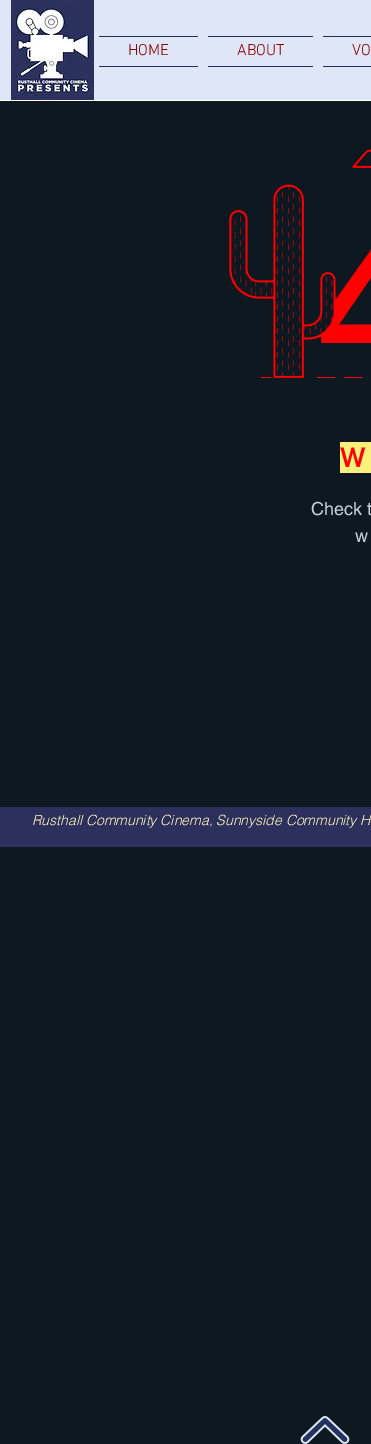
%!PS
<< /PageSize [371 1444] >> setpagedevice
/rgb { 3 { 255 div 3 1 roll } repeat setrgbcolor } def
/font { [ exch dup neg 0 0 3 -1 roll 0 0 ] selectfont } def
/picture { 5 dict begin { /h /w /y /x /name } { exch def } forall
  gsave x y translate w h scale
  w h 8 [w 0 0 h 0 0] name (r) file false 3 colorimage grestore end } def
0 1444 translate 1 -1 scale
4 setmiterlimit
14 24 33 rgb
0 0 371 1444 rectfill
223 230 247 rgb
0 0 371 100 rectfill
(img/1.rgb) 11 0 83 100 picture
[
  [99 36 99 1 35 51 94]
  [99 66 99 1 35 51 94]
  [208 36 105 1 35 51 94]
  [208 66 105 1 35 51 94]
  [323 36 48 1 35 51 94]
  [323 66 48 1 35 51 94]
  [0 100 371 1 255 255 255]
] { aload pop rgb rectfill } forall
(img/2.rgb) 229 149 142 229 picture
250 241 124 rgb
340 442 31 31 rectfill
45 48 92 rgb
0 807 371 40 rectfill
(img/3.rgb) 300 1416 50 28 picture
/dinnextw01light-Light 16 font
139 0 0 rgb
[
  [(HOME) 128 55]
  [(ABOUT) 237 55]
  [(VO) 352 55]
] { aload pop moveto show } forall
/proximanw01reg-Bold 28 font
255 0 0 rgb
340 467 moveto (W) show
/helvetica-Regular 18 font
197 208 217 rgb
311 515 moveto (Check t) show
355 542 moveto (w) show
/helvetica-LightItalic 14 font
252 248 189 rgb
32 825 moveto (Rusthall Community Cinema, Sunnyside Community H) show
showpage
